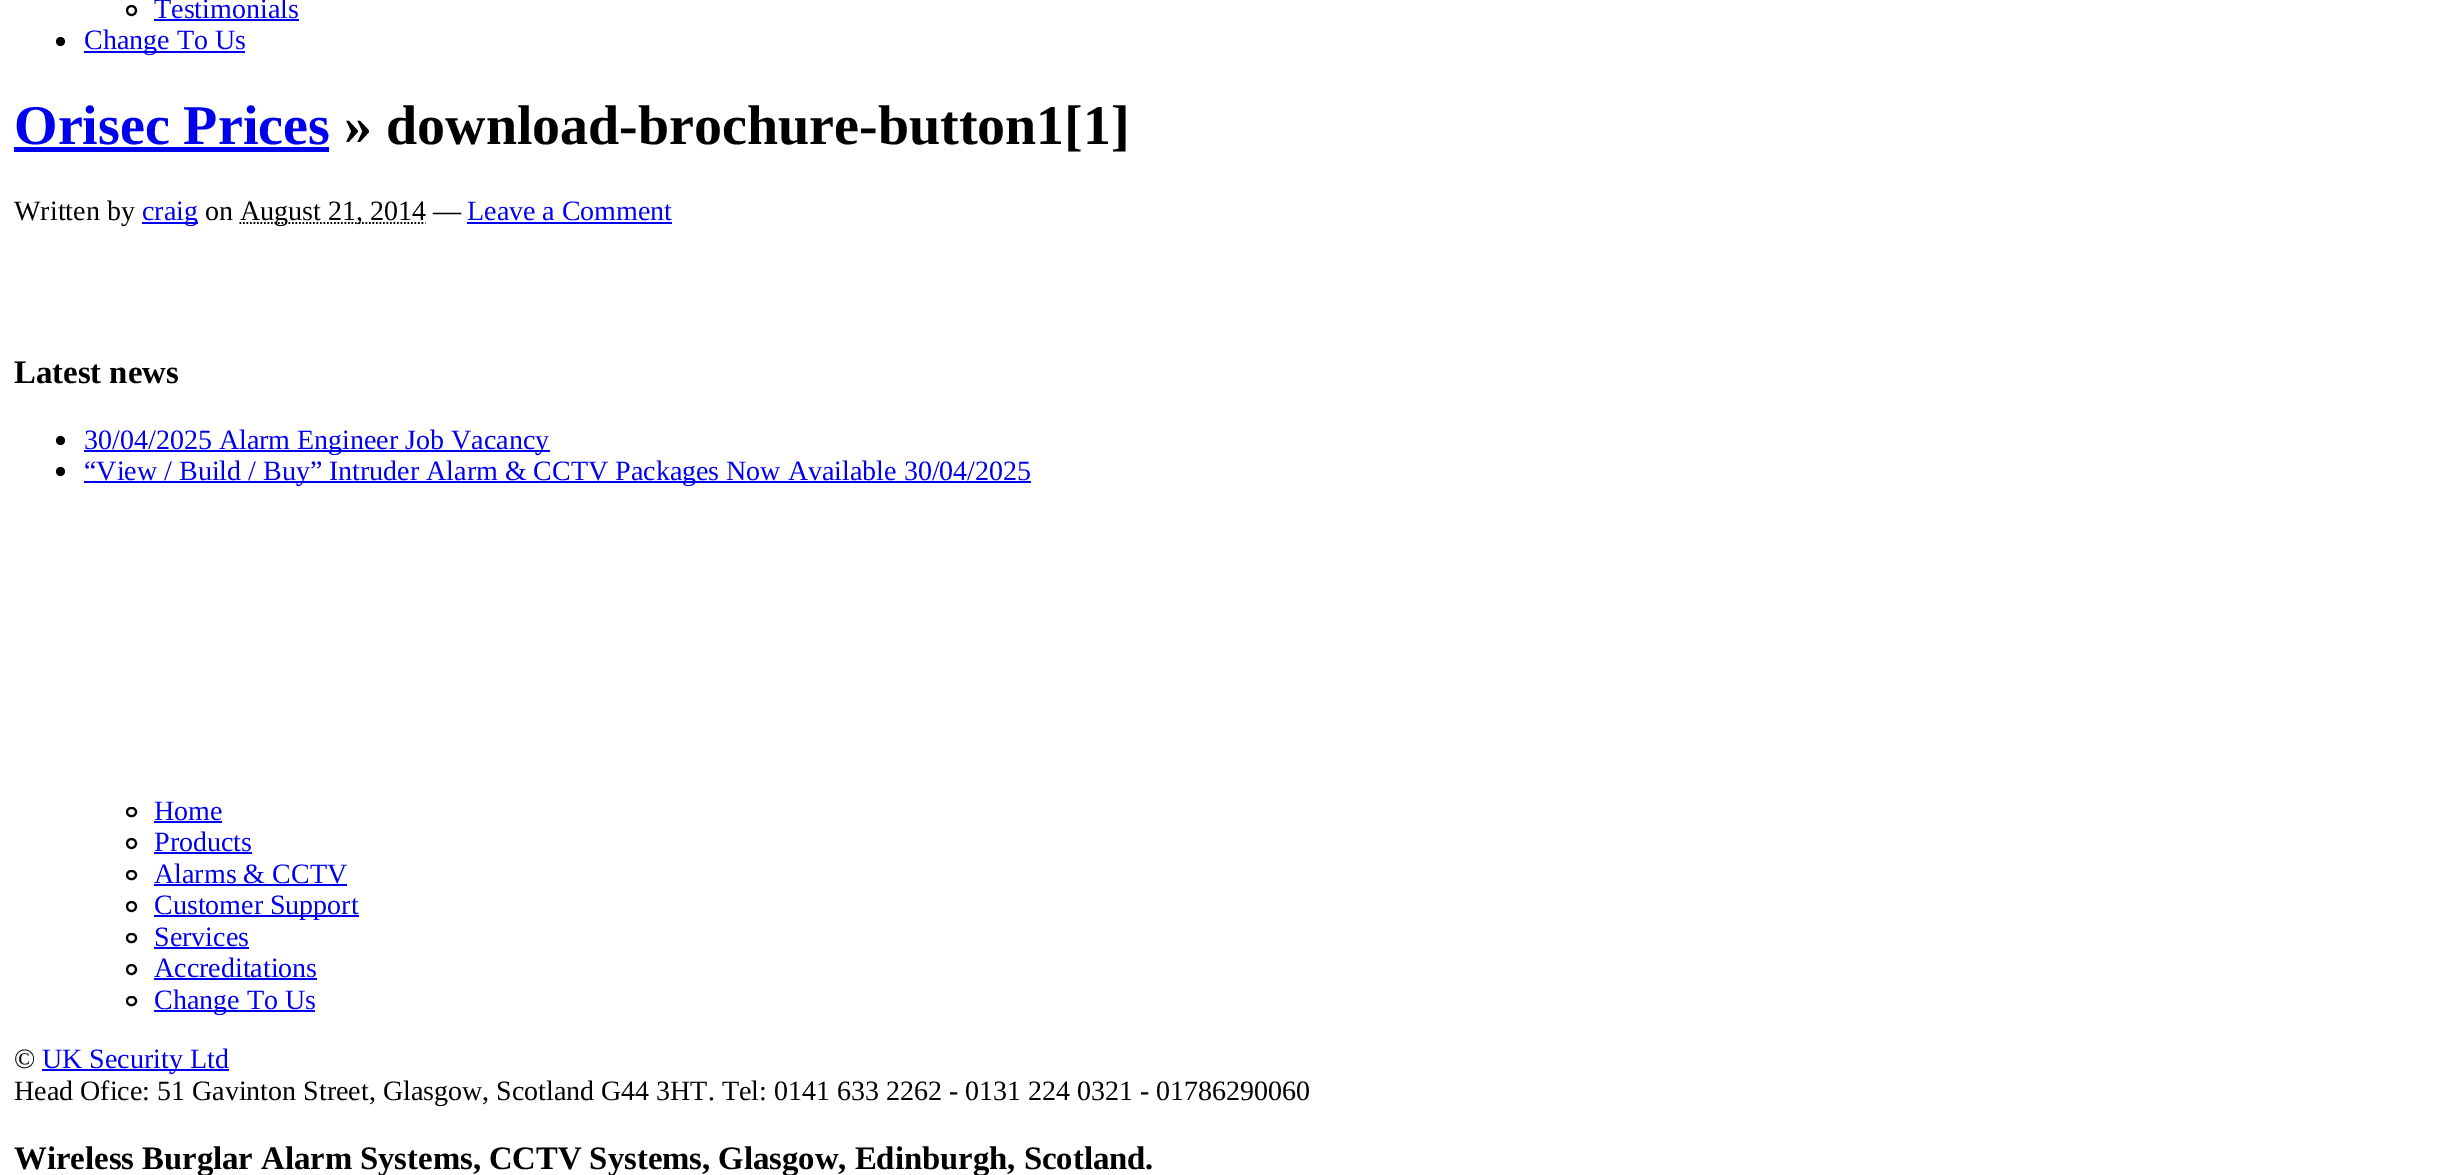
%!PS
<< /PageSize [2439 1175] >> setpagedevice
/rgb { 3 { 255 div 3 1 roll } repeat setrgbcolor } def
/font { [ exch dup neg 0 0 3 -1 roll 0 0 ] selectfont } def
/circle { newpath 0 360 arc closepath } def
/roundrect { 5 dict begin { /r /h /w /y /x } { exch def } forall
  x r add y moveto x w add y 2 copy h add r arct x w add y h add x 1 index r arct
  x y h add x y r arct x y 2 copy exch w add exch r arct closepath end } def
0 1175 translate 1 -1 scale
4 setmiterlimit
255 255 255 rgb
0 0 2439 1175 rectfill
0 0 0 rgb
2 setlinewidth
131.5 10.5 4.5 circle stroke
0 0 238 rgb
154 19 145 2 rectfill
0 0 0 rgb
60.5 41.5 4.5 circle fill
[
  [84 51 161 2 0 0 238]
  [14 147 315 5 0 0 238]
  [142 222 56 2 0 0 238]
] { aload pop rgb rectfill } forall
0 0 0 rgb
1.8 setlinewidth
[1.75 1.75] 0 setdash
239.5 223 moveto 425.5 223 lineto stroke
0 0 238 rgb
467 222 205 2 rectfill
0 0 0 rgb
60.5 440.5 4.5 circle fill
0 0 238 rgb
84 450 466 2 rectfill
0 0 0 rgb
60.5 471.5 4.5 circle fill
0 0 238 rgb
84 481 947 2 rectfill
0 0 0 rgb
2 setlinewidth
[] 0 setdash
127 808 9 8 4 roundrect stroke
0 0 238 rgb
154 821 68 2 rectfill
0 0 0 rgb
131.5 843.5 4.5 circle stroke
0 0 238 rgb
154 852 98 2 rectfill
0 0 0 rgb
127 871 9 8 4 roundrect stroke
0 0 238 rgb
154 884 193 2 rectfill
0 0 0 rgb
131.5 906.5 4.5 circle stroke
0 0 238 rgb
154 915 205 2 rectfill
0 0 0 rgb
127 934 9 8 4 roundrect stroke
0 0 238 rgb
154 947 95 2 rectfill
0 0 0 rgb
131.5 969.5 4.5 circle stroke
0 0 238 rgb
154 978 163 2 rectfill
0 0 0 rgb
127 997 9 8 4 roundrect stroke
0 0 238 rgb
154 1010 161 2 rectfill
42 1069 187 2 rectfill
/LiberationSerif-Regular 28 font
154 18 moveto (Testimonials) show
84 49 moveto (Change To Us) show
/LiberationSerif-Bold 56 font
14 144 moveto (Orisec Prices) show
0 0 0 rgb
344 144 moveto (» download-brochure-button1[1]) show
/LiberationSerif-Regular 28 font
14 220 moveto (Written by) show
0 0 238 rgb
142 220 moveto (craig) show
0 0 0 rgb
205 220 moveto (on) show
240 220 moveto (August 21, 2014 —) show
0 0 238 rgb
467 220 moveto (Leave a Comment) show
/LiberationSerif-Bold 32.75 font
0 0 0 rgb
14 383 moveto (Latest news) show
/LiberationSerif-Regular 28 font
0 0 238 rgb
[
  [(30/04/2025 Alarm Engineer Job Vacancy) 84 449]
  [(“View / Build / Buy” Intruder Alarm & CCTV Packages Now Available 30/04/2025) 84 480]
  [(Home) 154 820]
  [(Products) 154 851]
  [(Alarms & CCTV) 154 883]
  [(Customer Support) 154 914]
  [(Services) 154 946]
  [(Accreditations) 154 977]
  [(Change To Us) 154 1009]
] { aload pop moveto show } forall
0 0 0 rgb
14 1068 moveto (©) show
0 0 238 rgb
42 1068 moveto (UK Security Ltd) show
0 0 0 rgb
14 1100 moveto (Head Ofice: 51 Gavinton Street, Glasgow, Scotland G44 3HT. Tel: 0141 633 2262 - 0131 224 0321 - 01786290060) show
/LiberationSerif-Bold 32.75 font
14 1169 moveto -0.25 0 32 (Wireless Burglar Alarm Systems, CCTV Systems, Glasgow, Edinburgh, Scotland.) widthshow
showpage
